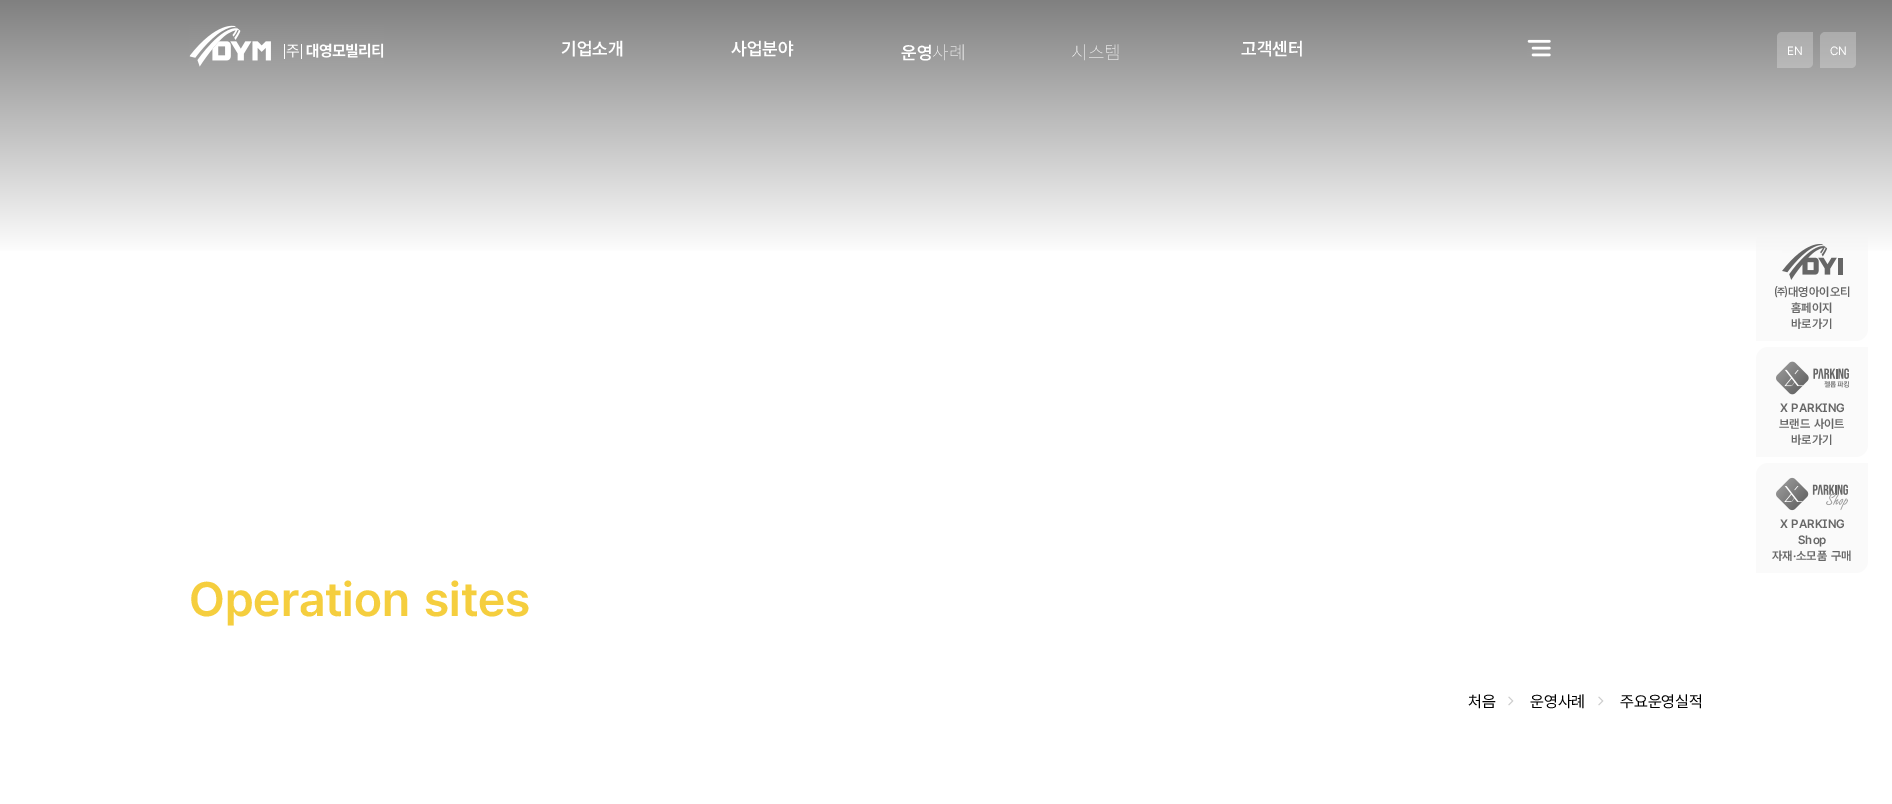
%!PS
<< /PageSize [1892 804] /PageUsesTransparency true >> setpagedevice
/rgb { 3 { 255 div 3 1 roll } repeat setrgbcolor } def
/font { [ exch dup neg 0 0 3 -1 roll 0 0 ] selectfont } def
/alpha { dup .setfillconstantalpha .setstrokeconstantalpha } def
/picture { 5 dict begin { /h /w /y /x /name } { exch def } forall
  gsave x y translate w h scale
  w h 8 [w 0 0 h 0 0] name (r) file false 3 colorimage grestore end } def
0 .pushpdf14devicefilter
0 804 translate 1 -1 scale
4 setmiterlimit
255 255 255 rgb
0 0 1892 804 rectfill
gsave 0 0 moveto 1892 0 lineto 1892 251 lineto 0 251 lineto closepath clip newpath
<< /ShadingType 2 /ColorSpace /DeviceRGB /Coords [946 0 946 256] /Extend [true true] /Function << /FunctionType 2 /Domain [0 1] /C0 [0.502 0.502 0.502] /C1 [1 1 1] /N 1 >> >> shfill grestore
(img/1.rgb) 189 25 195 42 picture
(img/2.rgb) 1527 39 24 18 picture
0.25 alpha
1782 32 moveto 1813 32 lineto 1813 63 lineto 1813 66 1810.5 68 1808 68 curveto 1777 68 lineto 1777 37 lineto 1777 34.5 1779 32 1782 32 curveto closepath fill
1825 32 moveto 1856 32 lineto 1856 63 lineto 1856 66 1854 68 1851 68 curveto 1820 68 lineto 1820 37 lineto 1820 34.5 1822.5 32 1825 32 curveto closepath fill
1 alpha
(img/3.rgb) 1508 696 6 10 picture
(img/4.rgb) 1598 696 6 10 picture
0.44 alpha
244 244 244 rgb
1768 231 moveto 1868 231 lineto 1868 329 lineto 1868 335.5 1862.5 341 1856 341 curveto 1756 341 lineto 1756 243 lineto 1756 236.5 1761.5 231 1768 231 curveto closepath fill
1 alpha
(img/5.rgb) 1782 244 61 36 picture
250 250 250 rgb
1768 347 moveto 1868 347 lineto 1868 445 lineto 1868 451.5 1862.5 457 1856 457 curveto 1756 457 lineto 1756 359 lineto 1756 352.5 1761.5 347 1768 347 curveto closepath fill
(img/6.rgb) 1776 361 73 34 picture
1768 463 moveto 1868 463 lineto 1868 561 lineto 1868 567.5 1862.5 573 1856 573 curveto 1756 573 lineto 1756 475 lineto 1756 468.5 1761.5 463 1768 463 curveto closepath fill
(img/7.rgb) 1776 477 72 34 picture
/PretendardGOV-SemiBold 18 font
255 255 255 rgb
[
  [(기업소개) 561 55]
  [(사업분야) 731 55]
  [(운영) 901 59]
] { aload pop moveto show } forall
/NotoSansKR-Thin 18 font
932 59 moveto (사례) show
1071 59 moveto (시스템) show
/PretendardGOV-SemiBold 18 font
1241 55 moveto (고객센터) show
/PretendardGOV-Regular 12 font
1787 55 moveto (EN) show
1830 55 moveto (CN) show
/PretendardGOV-SemiBold 48 font
245 206 62 rgb
189 616 moveto (Operation sites) show
/PretendardGOV-Regular 16 font
0 0 0 rgb
[
  [(처음) 1468 707]
  [(운영사례) 1530 707]
  [(주요운영실적) 1620 707]
] { aload pop moveto show } forall
/PretendardGOV-SemiBold 12 font
102 102 102 rgb
[
  [(㈜대영아이오티) 1774 296]
  [(홈페이지) 1791 312]
  [(바로가기) 1791 328]
  [(X PARKING) 1780 412]
  [(브랜드 사이트) 1779 428]
  [(바로가기) 1791 444]
  [(X PARKING) 1780 528]
  [(Shop) 1798 544]
  [(자재·소모품 구매) 1772 560]
] { aload pop moveto show } forall
.poppdf14devicefilter showpage
